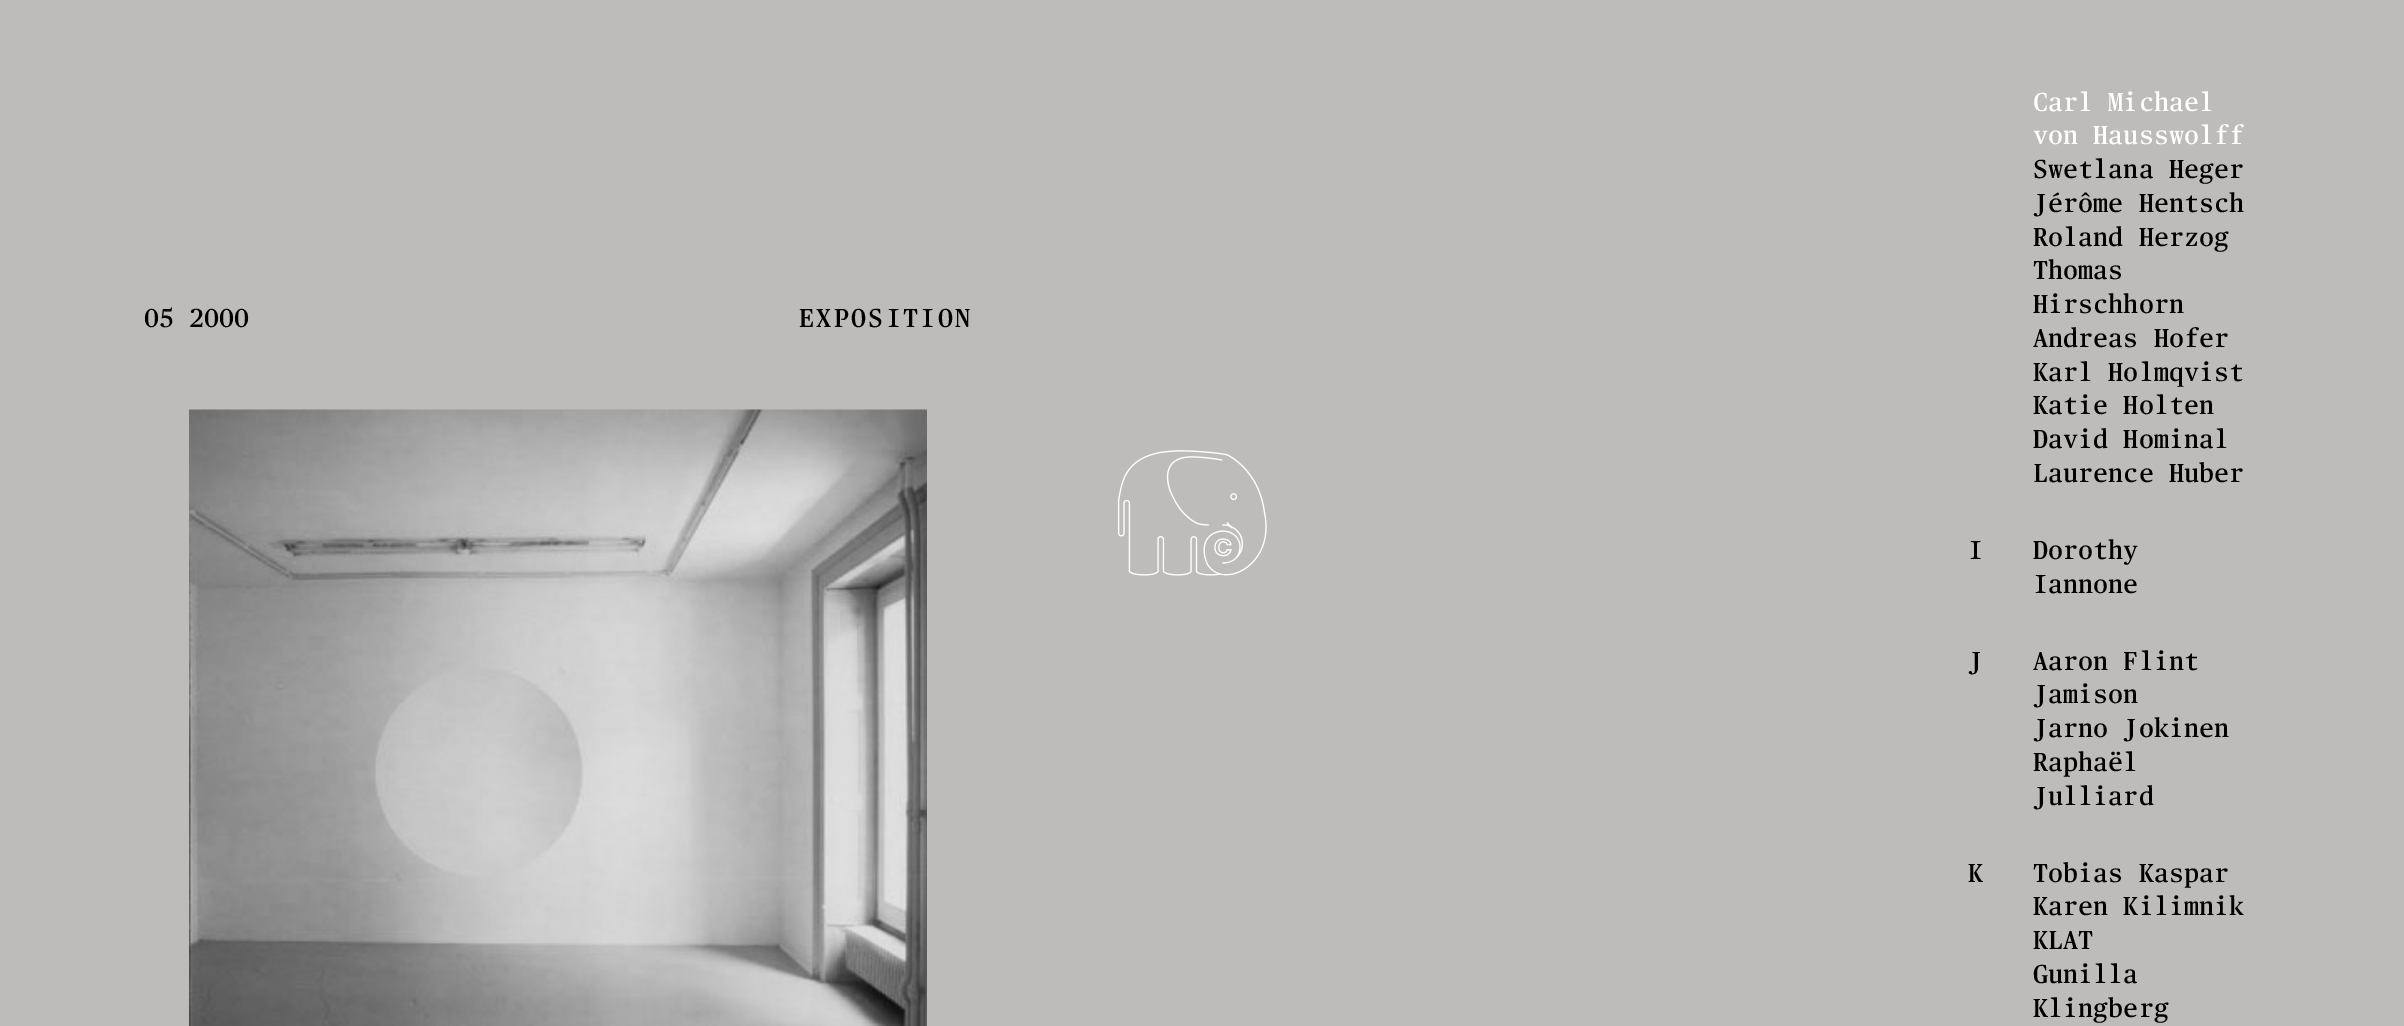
%!PS
<< /PageSize [2404 1026] >> setpagedevice
/rgb { 3 { 255 div 3 1 roll } repeat setrgbcolor } def
/font { [ exch dup neg 0 0 3 -1 roll 0 0 ] selectfont } def
/picture { 5 dict begin { /h /w /y /x /name } { exch def } forall
  gsave x y translate w h scale
  w h 8 [w 0 0 h 0 0] name (r) file false 3 colorimage grestore end } def
0 1026 translate 1 -1 scale
4 setmiterlimit
190 188 186 rgb
0 0 2404 1026 rectfill
(img/1.rgb) 189 409 738 617 picture
(img/2.rgb) 1117 450 150 126 picture
/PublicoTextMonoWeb-Medium 26 font
0 0 0 rgb
144 327 moveto (05 2000) show
799 327 moveto 2.25 0 (EXPOSITION) ashow
255 255 255 rgb
2033 111 moveto (Carl Michael) show
2033 144 moveto (von Hausswolff) show
0 0 0 rgb
[
  [(Swetlana Heger) 2033 178]
  [(Jérôme Hentsch) 2033 212]
  [(Roland Herzog) 2033 246]
  [(Thomas) 2033 279]
  [(Hirschhorn) 2033 313]
  [(Andreas Hofer) 2033 347]
  [(Karl Holmqvist) 2033 381]
  [(Katie Holten) 2033 414]
  [(David Hominal) 2033 448]
  [(Laurence Huber) 2033 482]
  [(I) 1968 559]
  [(Dorothy) 2033 559]
  [(Iannone) 2033 593]
  [(J) 1968 670]
  [(Aaron Flint) 2033 670]
  [(Jamison) 2033 703]
  [(Jarno Jokinen) 2033 737]
  [(Raphaël) 2033 771]
  [(Julliard) 2033 805]
  [(K) 1968 882]
  [(Tobias Kaspar) 2033 882]
  [(Karen Kilimnik) 2033 915]
  [(KLAT) 2033 949]
  [(Gunilla) 2033 983]
  [(Klingberg) 2033 1017]
] { aload pop moveto show } forall
showpage
